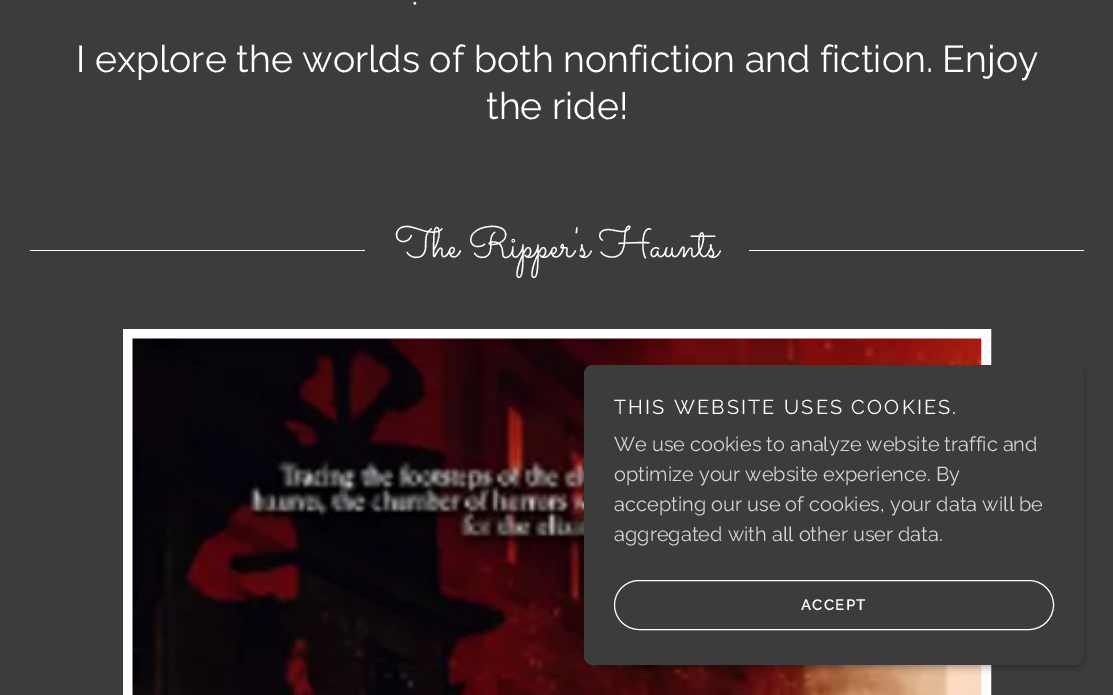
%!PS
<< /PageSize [1113 695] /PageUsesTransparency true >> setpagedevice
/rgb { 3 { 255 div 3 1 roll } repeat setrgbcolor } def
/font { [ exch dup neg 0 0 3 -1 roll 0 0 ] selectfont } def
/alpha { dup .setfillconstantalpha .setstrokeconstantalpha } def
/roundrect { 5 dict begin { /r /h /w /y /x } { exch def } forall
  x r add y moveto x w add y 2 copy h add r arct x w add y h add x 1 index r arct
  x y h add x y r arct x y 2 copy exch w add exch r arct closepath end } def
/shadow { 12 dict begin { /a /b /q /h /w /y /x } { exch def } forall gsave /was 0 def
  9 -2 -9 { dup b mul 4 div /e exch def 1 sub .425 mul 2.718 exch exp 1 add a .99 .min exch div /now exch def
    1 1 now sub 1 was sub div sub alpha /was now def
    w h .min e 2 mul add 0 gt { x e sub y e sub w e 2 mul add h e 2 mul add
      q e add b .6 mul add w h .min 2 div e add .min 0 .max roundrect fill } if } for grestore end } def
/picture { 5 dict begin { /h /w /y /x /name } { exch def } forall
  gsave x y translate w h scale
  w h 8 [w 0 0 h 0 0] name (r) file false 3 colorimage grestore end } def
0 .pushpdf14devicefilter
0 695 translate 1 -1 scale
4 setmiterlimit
60 60 60 rgb
0 0 1113 695 rectfill
255 255 255 rgb
30 250 335 1 rectfill
749 250 335 1 rectfill
10 setlinewidth
128 334 858 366 rectstroke
(img/1.rgb) 132 338 850 357 picture
0 0 0 rgb
584 368 500 300 9 4 0.3 shadow
60 60 60 rgb
584 365 500 300 9 roundrect fill
255 255 255 rgb
1 setlinewidth
614.5 580.5 439 49 24.5 roundrect stroke
/Sacramento-Regular 54 font
410 4 moveto (.) show
/Raleway-Regular 37.5 font
76 72 moveto (I explore the worlds of both nonfiction and fiction. Enjoy) show
486 119 moveto (the ride!) show
/Sacramento-Regular 42.5 font
395 257 moveto (The Ripper's Haunts) show
/Raleway-Regular 20 font
614 414 moveto 2.15 0 (THIS WEBSITE USES COOKIES.) ashow
213 213 213 rgb
[
  [(We use cookies to analyze website traffic and) 614 451]
  [(optimize your website experience. By) 614 481]
  [(accepting our use of cookies, your data will be) 614 511]
  [(aggregated with all other user data.) 614 541]
] { aload pop moveto show } forall
/Raleway-SemiBold 15 font
255 255 255 rgb
801 610 moveto 1.25 0 (ACCEPT) ashow
.poppdf14devicefilter showpage
